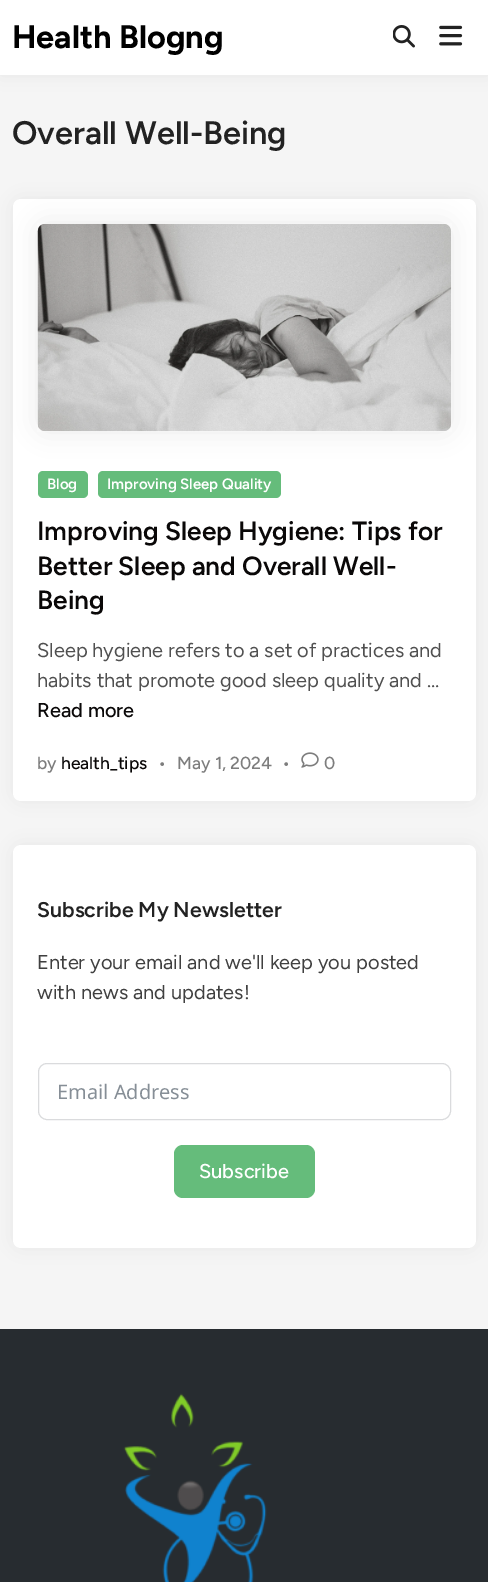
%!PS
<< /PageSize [488 1582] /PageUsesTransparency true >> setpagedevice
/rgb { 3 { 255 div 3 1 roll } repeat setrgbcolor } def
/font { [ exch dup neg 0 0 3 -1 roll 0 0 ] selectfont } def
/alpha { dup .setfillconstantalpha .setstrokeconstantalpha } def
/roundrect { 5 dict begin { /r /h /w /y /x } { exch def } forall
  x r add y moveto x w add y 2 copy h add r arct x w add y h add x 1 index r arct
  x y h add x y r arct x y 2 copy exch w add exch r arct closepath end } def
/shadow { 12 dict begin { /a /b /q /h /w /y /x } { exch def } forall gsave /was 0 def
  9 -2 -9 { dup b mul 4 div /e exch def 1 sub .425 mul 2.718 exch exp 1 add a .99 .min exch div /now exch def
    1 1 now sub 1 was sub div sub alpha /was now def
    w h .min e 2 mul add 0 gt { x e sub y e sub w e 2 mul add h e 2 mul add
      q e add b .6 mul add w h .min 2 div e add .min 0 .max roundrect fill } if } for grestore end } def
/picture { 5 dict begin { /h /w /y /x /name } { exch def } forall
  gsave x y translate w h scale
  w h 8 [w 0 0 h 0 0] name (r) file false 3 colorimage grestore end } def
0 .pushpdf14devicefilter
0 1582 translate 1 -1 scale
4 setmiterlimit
245 245 245 rgb
0 0 488 1582 rectfill
0 0 0 rgb
0 0 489 75 0 9.5 0.06 shadow
255 255 255 rgb
0 0 488 75 rectfill
(img/1.rgb) 393 25 22 23 picture
(img/2.rgb) 439 25 24 21 picture
0 0 0 rgb
13 199 463 602 8 9.5 0.06 shadow
255 255 255 rgb
13 199 463 602 8 roundrect fill
0 0 0 rgb
38 224 413 207 8 12.5 0.08 shadow
(img/3.rgb) 37 223 415 209 picture
101 188 123 rgb
38 471 50 27 5 roundrect fill
98 471 183 27 5 roundrect fill
(img/4.rgb) 301 752 18 16 picture
0 0 0 rgb
13 845 463 403 8 9.5 0.06 shadow
255 255 255 rgb
13 845 463 403 8 roundrect fill
218 219 221 rgb
38.5 1063.5 412 56 8.5 roundrect stroke
101 188 123 rgb
174 1145 141 53 9 roundrect fill
39 44 48 rgb
0 1329 488 253 rectfill
(img/5.rgb) 123 1393 144 189 picture
/Figtree-Bold 32.5 font
0 0 0 rgb
12 48 moveto (Health Blogng) show
/Figtree-SemiBold 32.5 font
34 34 34 rgb
12 144 moveto (Overall Well-Being) show
/Figtree-SemiBold 15 font
255 255 255 rgb
47 489 moveto (Blog) show
107 489 moveto (Improving Sleep Quality) show
/Figtree-SemiBold 26.25 font
10 8 8 rgb
[
  [(Improving Sleep Hygiene: Tips for) 37 540]
  [(Better Sleep and Overall Well-) 37 575]
  [(Being) 37 609]
] { aload pop moveto show } forall
/Figtree-Regular 20 font
80 80 80 rgb
37 657 moveto (Sleep hygiene refers to a set of practices and) show
37 687 moveto (habits that promote good sleep quality and …) show
/Figtree-Medium 20 font
10 8 8 rgb
37 717 moveto (Read more) show
/Figtree-Medium 17.5 font
125 125 125 rgb
37 769 moveto (by) show
10 8 8 rgb
61 769 moveto (health_tips) show
125 125 125 rgb
[
  [(•) 158 769]
  [(May 1, 2024) 177 769]
  [(•) 282 769]
  [(0) 324 769]
] { aload pop moveto show } forall
/Figtree-SemiBold 21.25 font
34 34 34 rgb
37 917 moveto (Subscribe My Newsletter) show
/Figtree-Regular 20 font
64 64 64 rgb
37 969 moveto (Enter your email and we'll keep you posted) show
37 999 moveto (with news and updates!) show
/NotoSans-Regular 20 font
134 142 150 rgb
57 1099 moveto (Email Address) show
/Figtree-Medium 20 font
255 255 255 rgb
199 1178 moveto (Subscribe) show
.poppdf14devicefilter showpage
